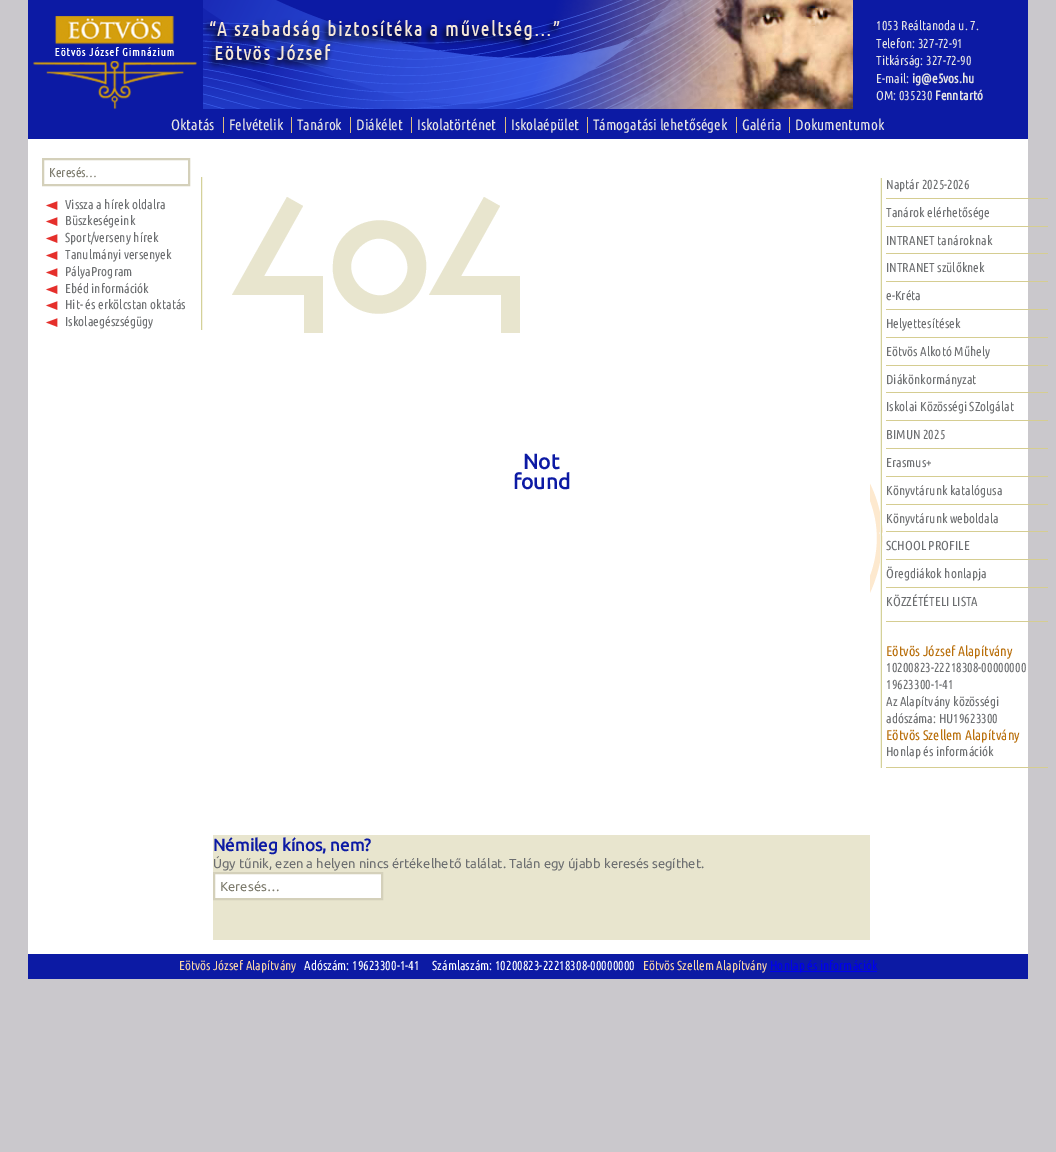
%!PS
<< /PageSize [1056 1152] >> setpagedevice
/rgb { 3 { 255 div 3 1 roll } repeat setrgbcolor } def
/font { [ exch dup neg 0 0 3 -1 roll 0 0 ] selectfont } def
/picture { 5 dict begin { /h /w /y /x /name } { exch def } forall
  gsave x y translate w h scale
  w h 8 [w 0 0 h 0 0] name (r) file false 3 colorimage grestore end } def
0 1152 translate 1 -1 scale
4 setmiterlimit
202 200 204 rgb
0 0 1056 1152 rectfill
255 255 255 rgb
28 139 1000 815 rectfill
(img/1.rgb) 870 483 13 110 picture
12 26 164 rgb
28 0 1000 139 rectfill
(img/2.rgb) 33 16 164 93 picture
(img/3.rgb) 203 0 650 109 picture
[
  [223 117 1 16 221 188 126]
  [291 117 1 16 221 188 126]
  [350 117 1 16 221 188 126]
  [411 117 1 16 221 188 126]
  [505 117 1 16 221 188 126]
  [587 117 1 16 221 188 126]
  [736 117 1 16 221 188 126]
  [789 117 1 16 221 188 126]
] { aload pop rgb rectfill } forall
(img/4.rgb) 201 177 2 153 picture
212 208 186 rgb
2 setlinewidth
43 159 146 26 rectstroke
(img/5.rgb) 45 201 13 9 picture
(img/5.rgb) 45 217 13 9 picture
(img/5.rgb) 45 234 13 9 picture
(img/5.rgb) 45 251 13 9 picture
(img/5.rgb) 45 268 13 9 picture
(img/5.rgb) 45 285 13 9 picture
(img/5.rgb) 45 301 13 9 picture
(img/5.rgb) 45 318 13 9 picture
232 229 206 rgb
232 295 moveto 287 197 lineto 303 206 lineto 264 276 lineto 323 276 lineto 323 333 lineto 304 333 lineto 304 295 lineto closepath 339 291 moveto 334 282 332 273 333 264 curveto 335 218 397 204 420 243 curveto 425 252 427 261 426 270 curveto 423 316 362 330 339 291 curveto closepath 360 247 moveto 333 273 373 313 399 287 curveto 425 261 386 221 360 247 curveto closepath 429 295 moveto 484 197 lineto 500 206 lineto 461 276 lineto 520 276 lineto 520 333 lineto 501 333 lineto 501 295 lineto closepath fill
213 835 657 105 rectfill
255 255 255 rgb
214 873 moveto 382 873 lineto 382 899 lineto 214 899 lineto closepath gsave fill grestore
212 208 186 rgb
stroke
(img/6.rgb) 880 178 2 590 picture
[
  [886 621 162 1 213 205 145]
  [886 198 162 1 213 205 145]
  [886 226 162 1 213 205 145]
  [886 253 162 1 213 205 145]
  [886 281 162 1 213 205 145]
  [886 309 162 1 213 205 145]
  [886 337 162 1 213 205 145]
  [886 365 162 1 213 205 145]
  [886 392 162 1 213 205 145]
  [886 420 162 1 213 205 145]
  [886 448 162 1 213 205 145]
  [886 476 162 1 213 205 145]
  [886 504 162 1 213 205 145]
  [886 531 162 1 213 205 145]
  [886 559 162 1 213 205 145]
  [886 587 162 1 213 205 145]
  [886 767 162 1 213 205 145]
  [28 954 1000 25 12 26 164]
  [770 971 107 1 0 0 238]
] { aload pop rgb rectfill } forall
/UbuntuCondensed-Regular 13 font
232 230 228 rgb
[
  [(1053 Reáltanoda u. 7.) 876 30]
  [(Telefon: 327-72-91) 876 48]
  [(Titkárság: 327-72-90) 876 65]
  [(E-mail:) 876 83]
] { aload pop moveto show } forall
/UbuntuCondensed-Bold 13 font
912 83 moveto (ig@e5vos.hu) show
/UbuntuCondensed-Regular 13 font
876 100 moveto (OM: 035230) show
/UbuntuCondensed-Bold 13 font
935 100 moveto (Fenntartó) show
/UbuntuCondensed-Regular 15 font
[
  [(Oktatás) 171 130]
  [(Felvételik) 229 130]
  [(Tanárok) 297 130]
  [(Diákélet) 356 130]
  [(Iskolatörténet) 417 130]
  [(Iskolaépület) 511 130]
  [(Támogatási lehetőségek) 593 130]
  [(Galéria) 742 130]
  [(Dokumentumok) 795 130]
] { aload pop moveto show } forall
/UbuntuCondensed-Regular 13 font
125 123 109 rgb
49 177 moveto (Keresés…) show
108 110 112 rgb
[
  [(Vissza a hírek oldalra) 65 209]
  [(Büszkeségeink) 65 225]
  [(Sport/verseny hírek) 65 242]
  [(Tanulmányi versenyek) 65 259]
  [(PályaProgram) 65 276]
  [(Ebéd információk) 65 293]
  [(Hit- és erkölcstan oktatás) 65 309]
  [(Iskolaegészségügy) 65 326]
] { aload pop moveto show } forall
/Ubuntu-Bold 21 font
12 26 164 rgb
523 469 moveto (Not) show
513 489 moveto (found) show
/Ubuntu-Bold 17 font
213 851 moveto (Némileg kínos, nem?) show
/Ubuntu-Regular 13 font
108 110 112 rgb
213 868 moveto (Úgy tűnik, ezen a helyen nincs értékelhető találat. Talán egy újabb keresés segíthet.) show
125 123 109 rgb
220 891 moveto (Keresés…) show
/UbuntuCondensed-Regular 13 font
108 110 112 rgb
[
  [(Naptár 2025-2026) 886 189]
  [(Tanárok elérhetősége) 886 217]
  [(INTRANET tanároknak) 886 245]
  [(INTRANET szülőknek) 886 272]
  [(e-Kréta) 886 300]
  [(Helyettesítések) 886 328]
  [(Eötvös Alkotó Műhely) 886 356]
  [(Diákönkormányzat) 886 384]
  [(Iskolai Közösségi SZolgálat) 886 411]
  [(BIMUN 2025) 886 439]
  [(Erasmus+) 886 467]
  [(Könyvtárunk katalógusa) 886 495]
  [(Könyvtárunk weboldala) 886 523]
  [(SCHOOL PROFILE) 886 550]
  [(Öregdiákok honlapja) 886 578]
  [(KÖZZÉTÉTELI LISTA) 886 606]
] { aload pop moveto show } forall
/UbuntuCondensed-Regular 14 font
185 111 11 rgb
886 656 moveto (Eötvös József Alapítvány) show
/UbuntuCondensed-Regular 13 font
108 110 112 rgb
[
  [(10200823-22218308-00000000) 886 672]
  [(19623300-1-41) 886 689]
  [(Az Alapítvány közösségi) 886 706]
  [(adószáma: HU19623300) 886 723]
] { aload pop moveto show } forall
/UbuntuCondensed-Regular 14 font
185 111 11 rgb
886 740 moveto (Eötvös Szellem Alapítvány) show
/UbuntuCondensed-Regular 13 font
108 110 112 rgb
886 756 moveto (Honlap és információk) show
250 214 167 rgb
179 970 moveto (Eötvös József Alapítvány) show
255 255 255 rgb
304 970 moveto (Adószám: 19623300-1-41     Számlaszám: 10200823-22218308-00000000) show
250 214 167 rgb
643 970 moveto (Eötvös Szellem Alapítvány) show
0 0 238 rgb
770 970 moveto (Honlap és információk) show
showpage
